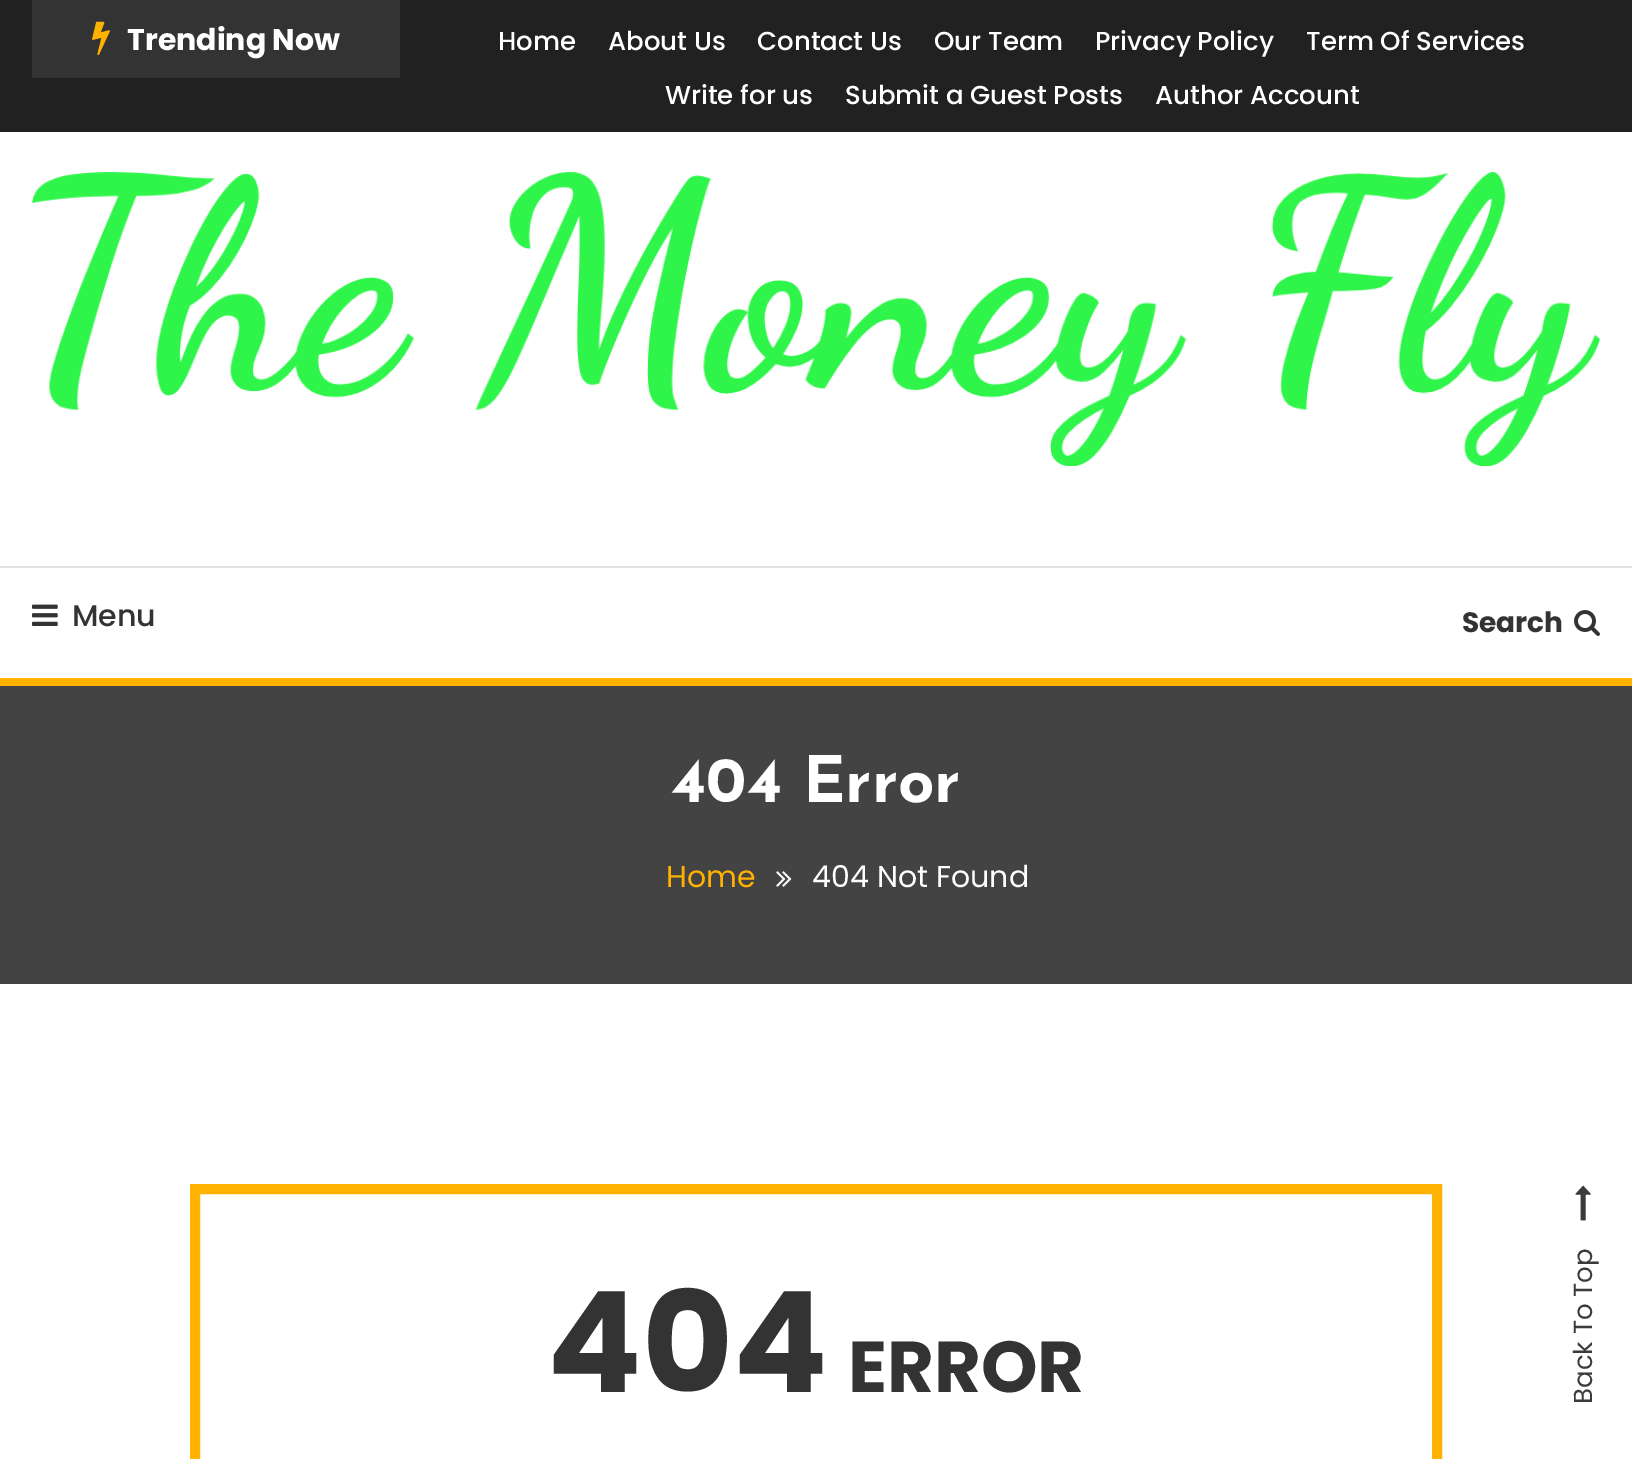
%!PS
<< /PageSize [1632 1459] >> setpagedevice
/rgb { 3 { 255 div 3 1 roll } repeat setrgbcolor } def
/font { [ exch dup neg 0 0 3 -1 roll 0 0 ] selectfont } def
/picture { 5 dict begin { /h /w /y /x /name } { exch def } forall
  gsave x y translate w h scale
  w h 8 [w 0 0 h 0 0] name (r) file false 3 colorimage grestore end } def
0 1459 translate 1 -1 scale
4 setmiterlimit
255 255 255 rgb
0 0 1632 1459 rectfill
33 33 33 rgb
0 0 1632 132 rectfill
51 51 51 rgb
32 0 368 78 rectfill
(img/1.rgb) 92 21 18 35 picture
(img/2.rgb) 32 172 1568 294 picture
225 225 225 rgb
0 566 1632 2 rectfill
(img/3.rgb) 32 604 26 22 picture
(img/4.rgb) 1574 610 26 26 picture
67 67 67 rgb
0 686 1632 298 rectfill
255 179 0 rgb
0 678 1632 8 rectfill
(img/5.rgb) 776 871 16 16 picture
10 setlinewidth
195 1189 1242 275 rectstroke
(img/6.rgb) 1575 1185 16 36 picture
/Poppins-Bold 30 font
255 255 255 rgb
127 50 moveto (Trending Now) show
/Poppins-Medium 26 font
[
  [(Home) 498 50]
  [(About Us) 608 50]
  [(Contact Us) 757 50]
  [(Our Team) 934 50]
  [(Privacy Policy) 1095 50]
  [(Term Of Services) 1306 50]
  [(Write for us) 665 104]
  [(Submit a Guest Posts) 845 104]
  [(Author Account) 1155 104]
] { aload pop moveto show } forall
/Poppins-Medium 30 font
51 51 51 rgb
72 626 moveto (Menu) show
/Poppins-Bold 28 font
1462 632 moveto (Search) show
/JosefinSans-Bold 64 font
255 255 255 rgb
671 802 moveto (404 Error) show
/Poppins-Regular 30 font
255 179 0 rgb
666 887 moveto (Home) show
255 255 255 rgb
812 887 moveto (404 Not Found) show
/Poppins-Bold 140 font
51 51 51 rgb
547 1392 moveto (404) show
/Poppins-Bold 72 font
848 1392 moveto (ERROR) show
/Poppins-Regular 26 font
59 59 59 rgb
gsave 1592 1404 translate -90 rotate 0 0 moveto (Back To Top) show grestore
showpage
